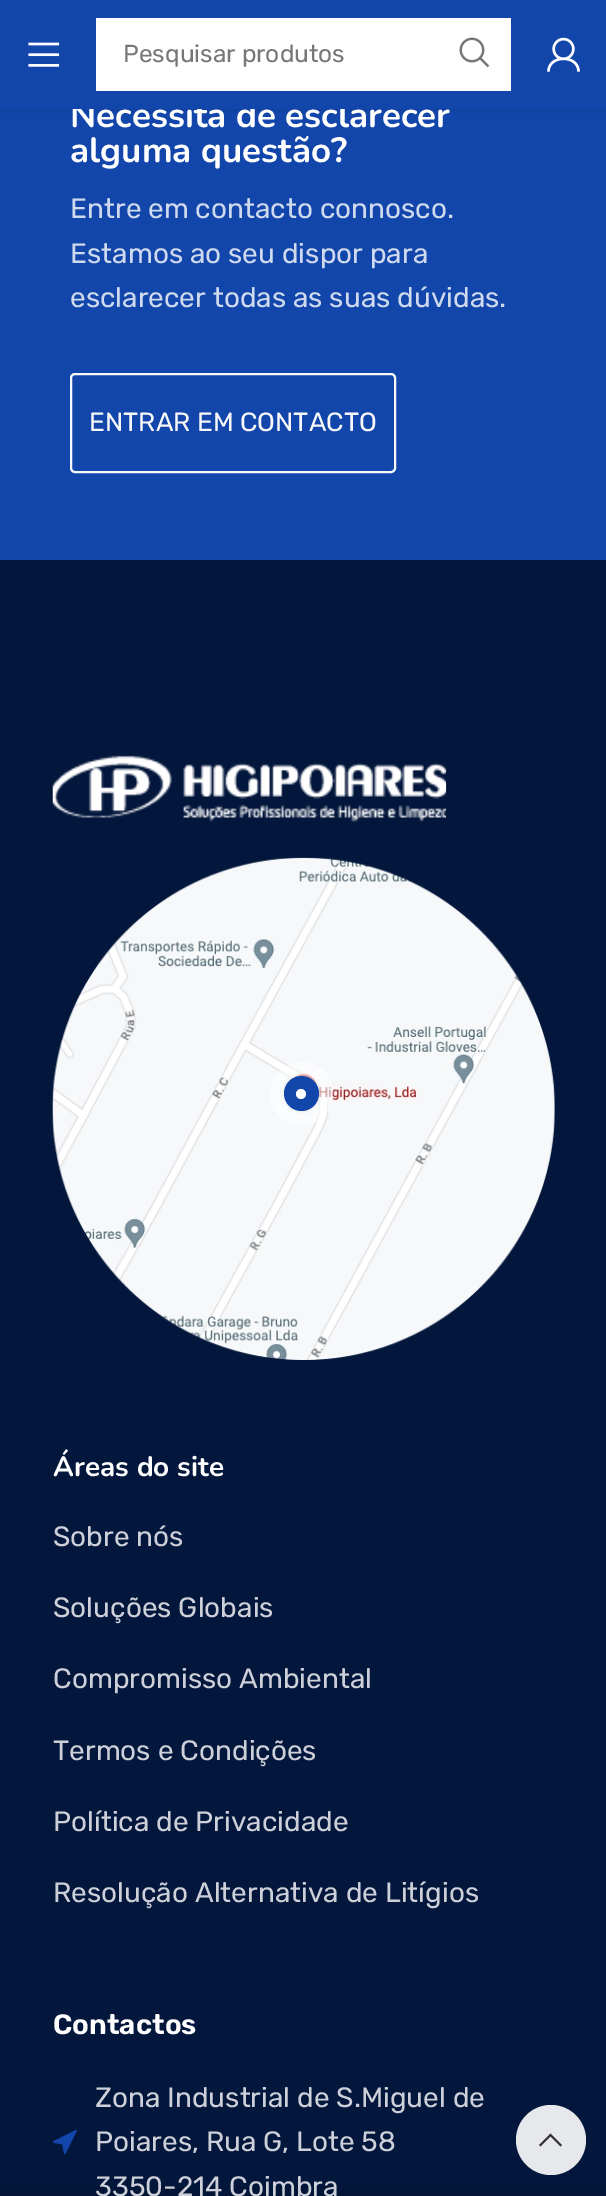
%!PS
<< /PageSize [606 2196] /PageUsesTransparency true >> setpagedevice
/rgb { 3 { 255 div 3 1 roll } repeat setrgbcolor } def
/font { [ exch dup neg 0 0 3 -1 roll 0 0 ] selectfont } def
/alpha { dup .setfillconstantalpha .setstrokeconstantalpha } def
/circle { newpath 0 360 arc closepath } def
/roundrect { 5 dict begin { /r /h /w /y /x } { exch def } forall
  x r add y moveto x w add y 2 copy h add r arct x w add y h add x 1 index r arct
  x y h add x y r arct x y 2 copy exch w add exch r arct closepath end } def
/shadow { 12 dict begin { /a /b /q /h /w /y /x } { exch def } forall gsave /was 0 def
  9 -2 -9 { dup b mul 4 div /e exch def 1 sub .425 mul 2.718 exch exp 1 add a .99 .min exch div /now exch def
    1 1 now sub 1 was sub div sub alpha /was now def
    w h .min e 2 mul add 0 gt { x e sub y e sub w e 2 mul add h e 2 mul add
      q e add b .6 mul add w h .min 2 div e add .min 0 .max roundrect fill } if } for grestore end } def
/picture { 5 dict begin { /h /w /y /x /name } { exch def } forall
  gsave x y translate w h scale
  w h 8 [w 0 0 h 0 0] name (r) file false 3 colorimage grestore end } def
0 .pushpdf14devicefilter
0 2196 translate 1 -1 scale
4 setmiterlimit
3 22 59 rgb
0 0 606 2196 rectfill
18 70 171 rgb
0 109 606 451 rectfill
0 0 0 rgb
0 2 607 108 0 2.5 0.1 shadow
248 248 248 rgb
2 setlinewidth
71 374 324 98 4 roundrect stroke
(img/4.rgb) 52 755 395 67 picture
(img/5.rgb) 52 857 503 503 picture
0 0 0 rgb
284 1076 35 35 17.5 2.5 0.15 shadow
0.5 alpha
255 255 255 rgb
301.5 1093.5 31.5 circle fill
1 alpha
18 70 171 rgb
301.5 1093.5 17.5 circle fill
255 255 255 rgb
301 1094 5 circle fill
(img/6.rgb) 53 2130 24 24 picture
0.9 alpha
551 2140 35 circle fill
1 alpha
51 51 51 rgb
560.5 2146.5 moveto 562 2145 lineto 550.5 2133.5 lineto 539 2145 lineto 540.5 2146.5 lineto 550.5 2136.5 lineto closepath fill
0 0 0 rgb
0 2196 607 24 0 8 0.14 shadow
/Nunito-Bold 35 font
255 255 255 rgb
70 127 moveto (Necessita de esclarecer) show
18 70 171 rgb
0 0 606 109 rectfill
(img/3.rgb) 547 37 33 35 picture
255 255 255 rgb
96 18 415 73 rectfill
(img/2.rgb) 459 37 31 31 picture
/Rubik-Regular 24.5 font
119 119 119 rgb
123 62 moveto (Pesquisar produtos) show
(img/1.rgb) 28 42 32 25 picture
/Nunito-Bold 35 font
255 255 255 rgb
70 162 moveto (alguma questão?) show
/Rubik-Regular 28 font
208 218 238 rgb
[
  [(Entre em contacto connosco.) 70 218]
  [(Estamos ao seu dispor para) 70 263]
  [(esclarecer todas as suas dúvidas.) 70 307]
] { aload pop moveto show } forall
/Rubik-Regular 26.25 font
248 248 248 rgb
89 431 moveto (ENTRAR EM CONTACTO) show
/Nunito-Bold 28 font
255 255 255 rgb
53 1476 moveto (Áreas do site) show
/Rubik-Regular 28 font
205 208 216 rgb
[
  [(Sobre nós) 53 1546]
  [(Soluções Globais) 53 1617]
  [(Compromisso Ambiental) 53 1688]
  [(Termos e Condições) 53 1760]
  [(Política de Privacidade) 53 1831]
  [(Resolução Alternativa de Litígios) 53 1902]
] { aload pop moveto show } forall
/Rubik-SemiBold 28 font
255 255 255 rgb
53 2034 moveto (Contactos) show
/Rubik-Regular 28 font
205 208 216 rgb
[
  [(Zona Industrial de S.Miguel de) 95 2107]
  [(Poiares, Rua G, Lote 58) 95 2151]
  [(3350-214 Coimbra) 95 2196]
] { aload pop moveto show } forall
.poppdf14devicefilter showpage
